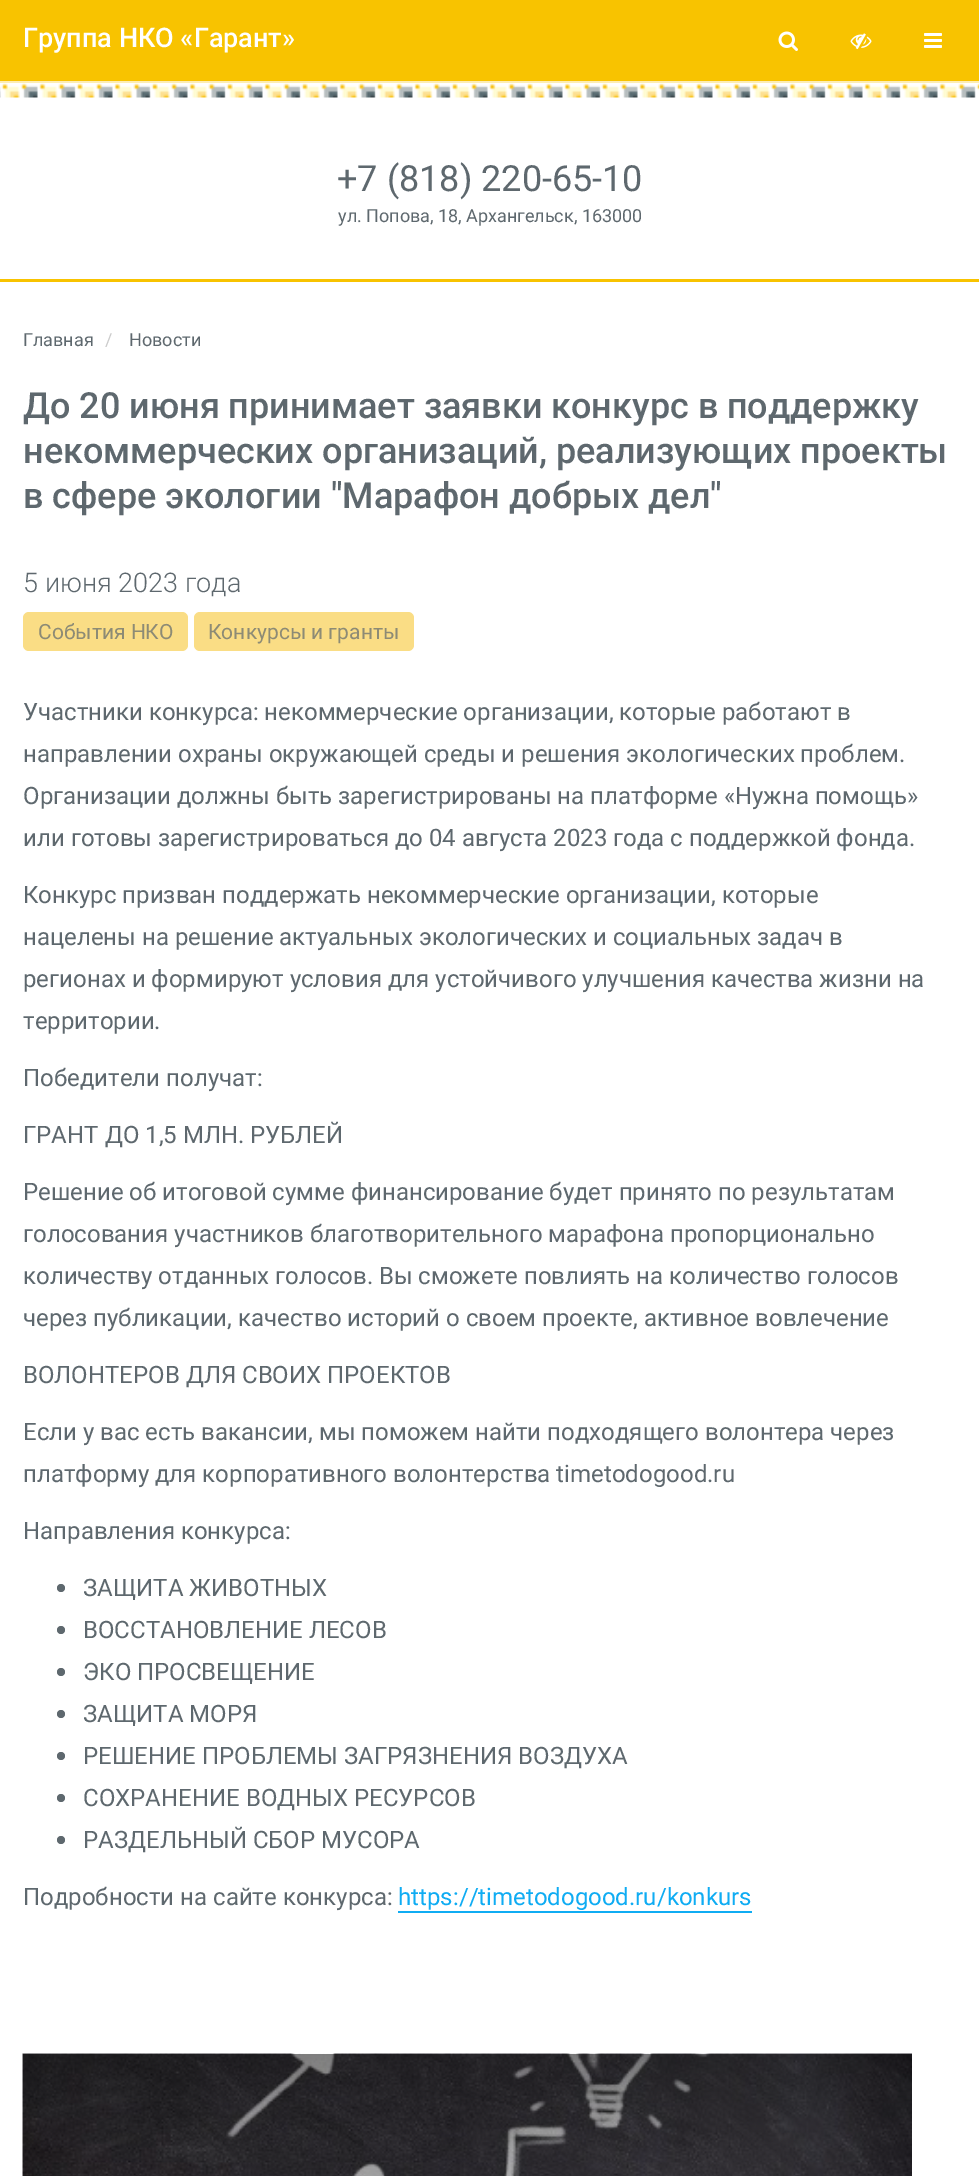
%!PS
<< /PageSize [979 2176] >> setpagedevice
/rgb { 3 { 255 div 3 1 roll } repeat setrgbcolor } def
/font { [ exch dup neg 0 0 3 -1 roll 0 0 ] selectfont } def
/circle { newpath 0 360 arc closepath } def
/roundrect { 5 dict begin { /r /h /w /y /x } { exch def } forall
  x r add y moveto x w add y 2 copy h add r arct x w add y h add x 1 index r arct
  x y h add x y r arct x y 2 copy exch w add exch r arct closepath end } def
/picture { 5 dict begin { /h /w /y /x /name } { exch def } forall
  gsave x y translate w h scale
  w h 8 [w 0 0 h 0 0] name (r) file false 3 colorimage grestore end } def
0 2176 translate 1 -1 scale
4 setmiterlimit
255 255 255 rgb
0 0 979 2176 rectfill
248 195 0 rgb
0 0 979 81 rectfill
253 237 179 rgb
0 81 979 2 rectfill
(img/1.rgb) 778 31 20 20 picture
(img/2.rgb) 850 33 22 17 picture
(img/3.rgb) 924 33 18 15 picture
(img/4.rgb) 0 83 979 15 picture
248 195 0 rgb
0 279 979 3 rectfill
250 221 133 rgb
23 612 165 39 6 roundrect fill
194 612 220 39 6 roundrect fill
94 104 110 rgb
61 1588 4 circle fill
61 1630 4 circle fill
61 1672 4 circle fill
61 1714 4 circle fill
61 1756 4 circle fill
61 1798 4 circle fill
61 1840 4 circle fill
15 172 243 rgb
398 1911 354 2 rectfill
(img/5.rgb) 22 2053 890 123 picture
/Roboto-Medium 27 font
255 255 255 rgb
23 47 moveto (Группа НКО «Гарант») show
/Roboto-Regular 36 font
94 104 110 rgb
337 191 moveto (+7 \(818\) 220-65-10) show
/Roboto-Regular 18 font
338 222 moveto (ул. Попова, 18, Архангельск, 163000) show
23 346 moveto (Главная) show
204 204 204 rgb
105 346 moveto (/) show
94 104 110 rgb
129 346 moveto (Новости) show
/Roboto-Medium 36 font
[
  [(До 20 июня принимает заявки конкурс в поддержку) 23 418]
  [(некоммерческих организаций, реализующих проекты) 23 463]
  [(в сфере экологии "Марафон добрых дел") 23 508]
] { aload pop moveto show } forall
/Roboto-Light 27 font
23 592 moveto (5 июня 2023 года) show
/Roboto-Regular 21 font
141 139 117 rgb
38 639 moveto (События НКО) show
208 639 moveto (Конкурсы и гранты) show
/Roboto-Regular 24 font
94 104 110 rgb
[
  [(Участники конкурса: некоммерческие организации, которые работают в) 23 720]
  [(направлении охраны окружающей среды и решения экологических проблем.) 23 762]
  [(Организации должны быть зарегистрированы на платформе «Нужна помощь») 23 804]
  [(или готовы зарегистрироваться до 04 августа 2023 года с поддержкой фонда.) 23 846]
  [(Конкурс призван поддержать некоммерческие организации, которые) 23 903]
  [(нацелены на решение актуальных экологических и социальных задач в) 23 945]
  [(регионах и формируют условия для устойчивого улучшения качества жизни на) 23 987]
  [(территории.) 23 1029]
  [(Победители получат:) 23 1086]
  [(ГРАНТ ДО 1,5 МЛН. РУБЛЕЙ) 23 1143]
  [(Решение об итоговой сумме финансирование будет принято по результатам) 23 1200]
  [(голосования участников благотворительного марафона пропорционально) 23 1242]
  [(количеству отданных голосов. Вы сможете повлиять на количество голосов) 23 1284]
  [(через публикации, качество историй о своем проекте, активное вовлечение) 23 1326]
  [(ВОЛОНТЕРОВ ДЛЯ СВОИХ ПРОЕКТОВ) 23 1383]
  [(Если у вас есть вакансии, мы поможем найти подходящего волонтера через) 23 1440]
  [(платформу для корпоративного волонтерства timetodogood.ru) 23 1482]
  [(Направления конкурса:) 23 1539]
  [(ЗАЩИТА ЖИВОТНЫХ) 83 1596]
  [(ВОССТАНОВЛЕНИЕ ЛЕСОВ) 83 1638]
  [(ЭКО ПРОСВЕЩЕНИЕ) 83 1680]
  [(ЗАЩИТА МОРЯ) 83 1722]
  [(РЕШЕНИЕ ПРОБЛЕМЫ ЗАГРЯЗНЕНИЯ ВОЗДУХА) 83 1764]
  [(СОХРАНЕНИЕ ВОДНЫХ РЕСУРСОВ) 83 1806]
  [(РАЗДЕЛЬНЫЙ СБОР МУСОРА) 83 1848]
  [(Подробности на сайте конкурса:) 23 1905]
] { aload pop moveto show } forall
15 172 243 rgb
398 1905 moveto (https://timetodogood.ru/konkurs) show
showpage
